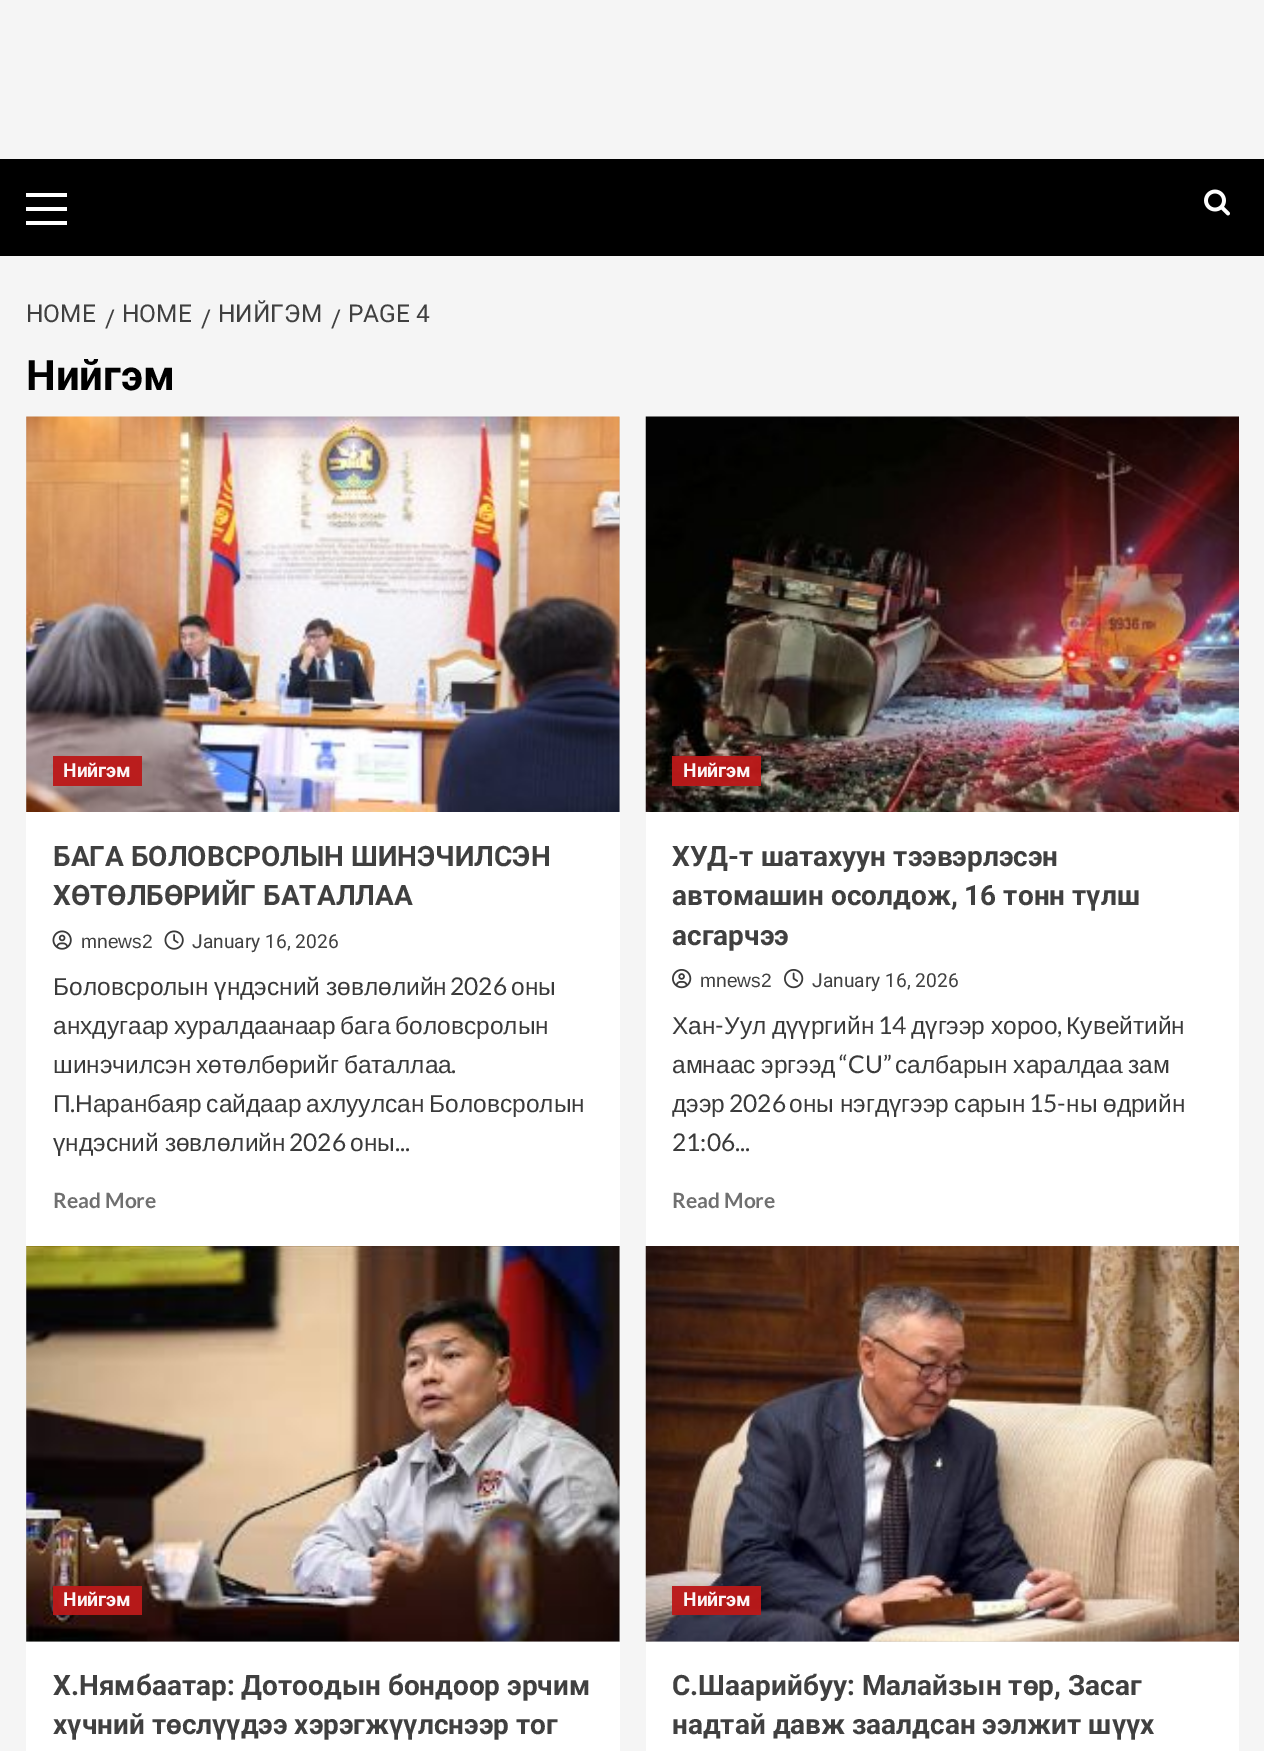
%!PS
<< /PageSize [1264 1751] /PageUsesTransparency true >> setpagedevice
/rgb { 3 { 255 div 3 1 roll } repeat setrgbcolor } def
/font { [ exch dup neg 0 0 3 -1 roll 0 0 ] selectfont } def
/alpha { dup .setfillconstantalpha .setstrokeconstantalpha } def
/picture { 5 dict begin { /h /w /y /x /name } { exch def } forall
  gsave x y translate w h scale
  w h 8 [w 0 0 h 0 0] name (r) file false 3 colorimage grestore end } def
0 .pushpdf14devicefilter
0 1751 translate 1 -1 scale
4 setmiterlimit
245 245 245 rgb
0 0 1264 1751 rectfill
[
  [0 159 1264 97 0 0 0]
  [26 207 41 4 255 255 255]
  [26 193 41 4 255 255 255]
  [26 221 41 4 255 255 255]
] { aload pop rgb rectfill } forall
(img/1.rgb) 1204 189 26 27 picture
26 812 594 434 rectfill
216 216 216 rgb
26 417 594 395 rectfill
(img/2.rgb) 26 416 594 396 picture
0.96 alpha
187 25 25 rgb
53 756 89 30 rectfill
1 alpha
(img/3.rgb) 52 930 20 20 picture
(img/4.rgb) 164 930 20 20 picture
255 255 255 rgb
646 812 593 434 rectfill
(img/5.rgb) 645 416 594 396 picture
0.96 alpha
187 25 25 rgb
672 756 89 30 rectfill
1 alpha
(img/6.rgb) 672 969 20 20 picture
(img/7.rgb) 784 969 20 20 picture
255 255 255 rgb
26 1642 594 109 rectfill
216 216 216 rgb
26 1246 594 396 rectfill
(img/8.rgb) 26 1246 594 396 picture
0.96 alpha
[
  [53 1586 89 29 187 25 25]
] { aload pop rgb rectfill } forall
1 alpha
[
  [646 1642 593 109 255 255 255]
  [646 1641 593 1 216 216 216]
] { aload pop rgb rectfill } forall
(img/9.rgb) 645 1246 594 396 picture
0.96 alpha
187 25 25 rgb
672 1586 89 29 rectfill
/Roboto-Regular 24.5 font
1 alpha
64 64 64 rgb
[
  [(HOME) 26 322]
  [(/) 105 327]
  [(HOME) 122 322]
  [(/) 201 327]
  [(НИЙГЭМ) 218 322]
  [(/) 331 327]
  [(PAGE 4) 348 322]
] { aload pop moveto show } forall
/Roboto-Bold 42 font
0 0 0 rgb
26 390 moveto (Нийгэм) show
/Roboto-Bold 19.25 font
252 246 246 rgb
63 777 moveto (Нийгэм) show
/Roboto-Bold 28 font
64 64 64 rgb
53 866 moveto (БАГА БОЛОВСРОЛЫН ШИНЭЧИЛСЭН) show
53 905 moveto (ХӨТӨЛБӨРИЙГ БАТАЛЛАА) show
/LiberationSans-Regular 19.25 font
81 948 moveto (mnews2) show
/Roboto-Regular 19.25 font
192 948 moveto (January 16, 2026) show
/LiberationSans-Regular 24.5 font
58 58 58 rgb
53 995 moveto -1 0 32 (Боловсролын үндэсний зөвлөлийн) widthshow
/Lato-Regular 24.5 font
450 995 moveto (2026) show
/LiberationSans-Regular 24.5 font
511 995 moveto (оны) show
53 1034 moveto -2 0 32 (анхдугаар хуралдаанаар бага боловсролын) widthshow
53 1073 moveto -2 0 32 (шинэчилсэн хөтөлбөрийг баталлаа) widthshow
/Lato-Regular 24.5 font
451 1073 moveto (.) show
/LiberationSans-Regular 24.5 font
53 1112 moveto (П) show
/Lato-Regular 24.5 font
70 1112 moveto (.) show
/LiberationSans-Regular 24.5 font
75 1112 moveto -2 0 32 (Наранбаяр сайдаар ахлуулсан Боловсролын) widthshow
53 1151 moveto -1 0 32 (үндэсний зөвлөлийн) widthshow
/Lato-Regular 24.5 font
289 1151 moveto (2026) show
/LiberationSans-Regular 24.5 font
350 1151 moveto (оны) show
/Lato-Regular 24.5 font
395 1151 moveto (...) show
/Lato-Bold 21 font
112 112 112 rgb
53 1208 moveto (Read More) show
/Roboto-Bold 19.25 font
252 246 246 rgb
683 777 moveto (Нийгэм) show
/Roboto-Bold 28 font
64 64 64 rgb
[
  [(ХУД-т шатахуун тээвэрлэсэн) 672 866]
  [(автомашин осолдож, 16 тонн түлш) 672 905]
  [(асгарчээ) 672 945]
] { aload pop moveto show } forall
/LiberationSans-Regular 19.25 font
700 987 moveto (mnews2) show
/Roboto-Regular 19.25 font
812 987 moveto (January 16, 2026) show
/LiberationSans-Regular 24.5 font
58 58 58 rgb
672 1034 moveto (Хан) show
/Lato-Regular 24.5 font
715 1034 moveto (-) show
/LiberationSans-Regular 24.5 font
724 1034 moveto -1 0 32 (Уул дүүргийн) widthshow
/Lato-Regular 24.5 font
878 1034 moveto (14) show
/LiberationSans-Regular 24.5 font
911 1034 moveto -1 0 32 (дүгээр хороо) widthshow
1066 1034 moveto (Кувейтийн) show
/Lato-Regular 24.5 font
1057 1034 moveto (,) show
/LiberationSans-Regular 24.5 font
672 1073 moveto -1 0 32 (амнаас эргээд) widthshow
/Lato-Regular 24.5 font
839 1073 moveto (“CU”) show
/LiberationSans-Regular 24.5 font
895 1073 moveto -1 0 32 (салбарын харалдаа зам) widthshow
672 1112 moveto (дээр) show
/Lato-Regular 24.5 font
729 1112 moveto (2026) show
/LiberationSans-Regular 24.5 font
789 1112 moveto -1 0 32 (оны нэгдүгээр сарын) widthshow
/Lato-Regular 24.5 font
1029 1112 moveto (15-) show
/LiberationSans-Regular 24.5 font
1066 1112 moveto -1 0 32 (ны өдрийн) widthshow
/Lato-Regular 24.5 font
672 1151 moveto (21:06...) show
/Lato-Bold 21 font
112 112 112 rgb
672 1208 moveto (Read More) show
/Roboto-Bold 19.25 font
252 246 246 rgb
63 1606 moveto (Нийгэм) show
/Roboto-Bold 28 font
64 64 64 rgb
53 1695 moveto (Х.Нямбаатар: Дотоодын бондоор эрчим) show
53 1734 moveto (хүчний төслүүдээ хэрэгжүүлснээр тог) show
/Roboto-Bold 19.25 font
252 246 246 rgb
683 1606 moveto (Нийгэм) show
/Roboto-Bold 28 font
64 64 64 rgb
672 1695 moveto (С.Шаарийбуу: Малайзын төр, Засаг) show
672 1734 moveto (надтай давж заалдсан ээлжит шүүх) show
.poppdf14devicefilter showpage
